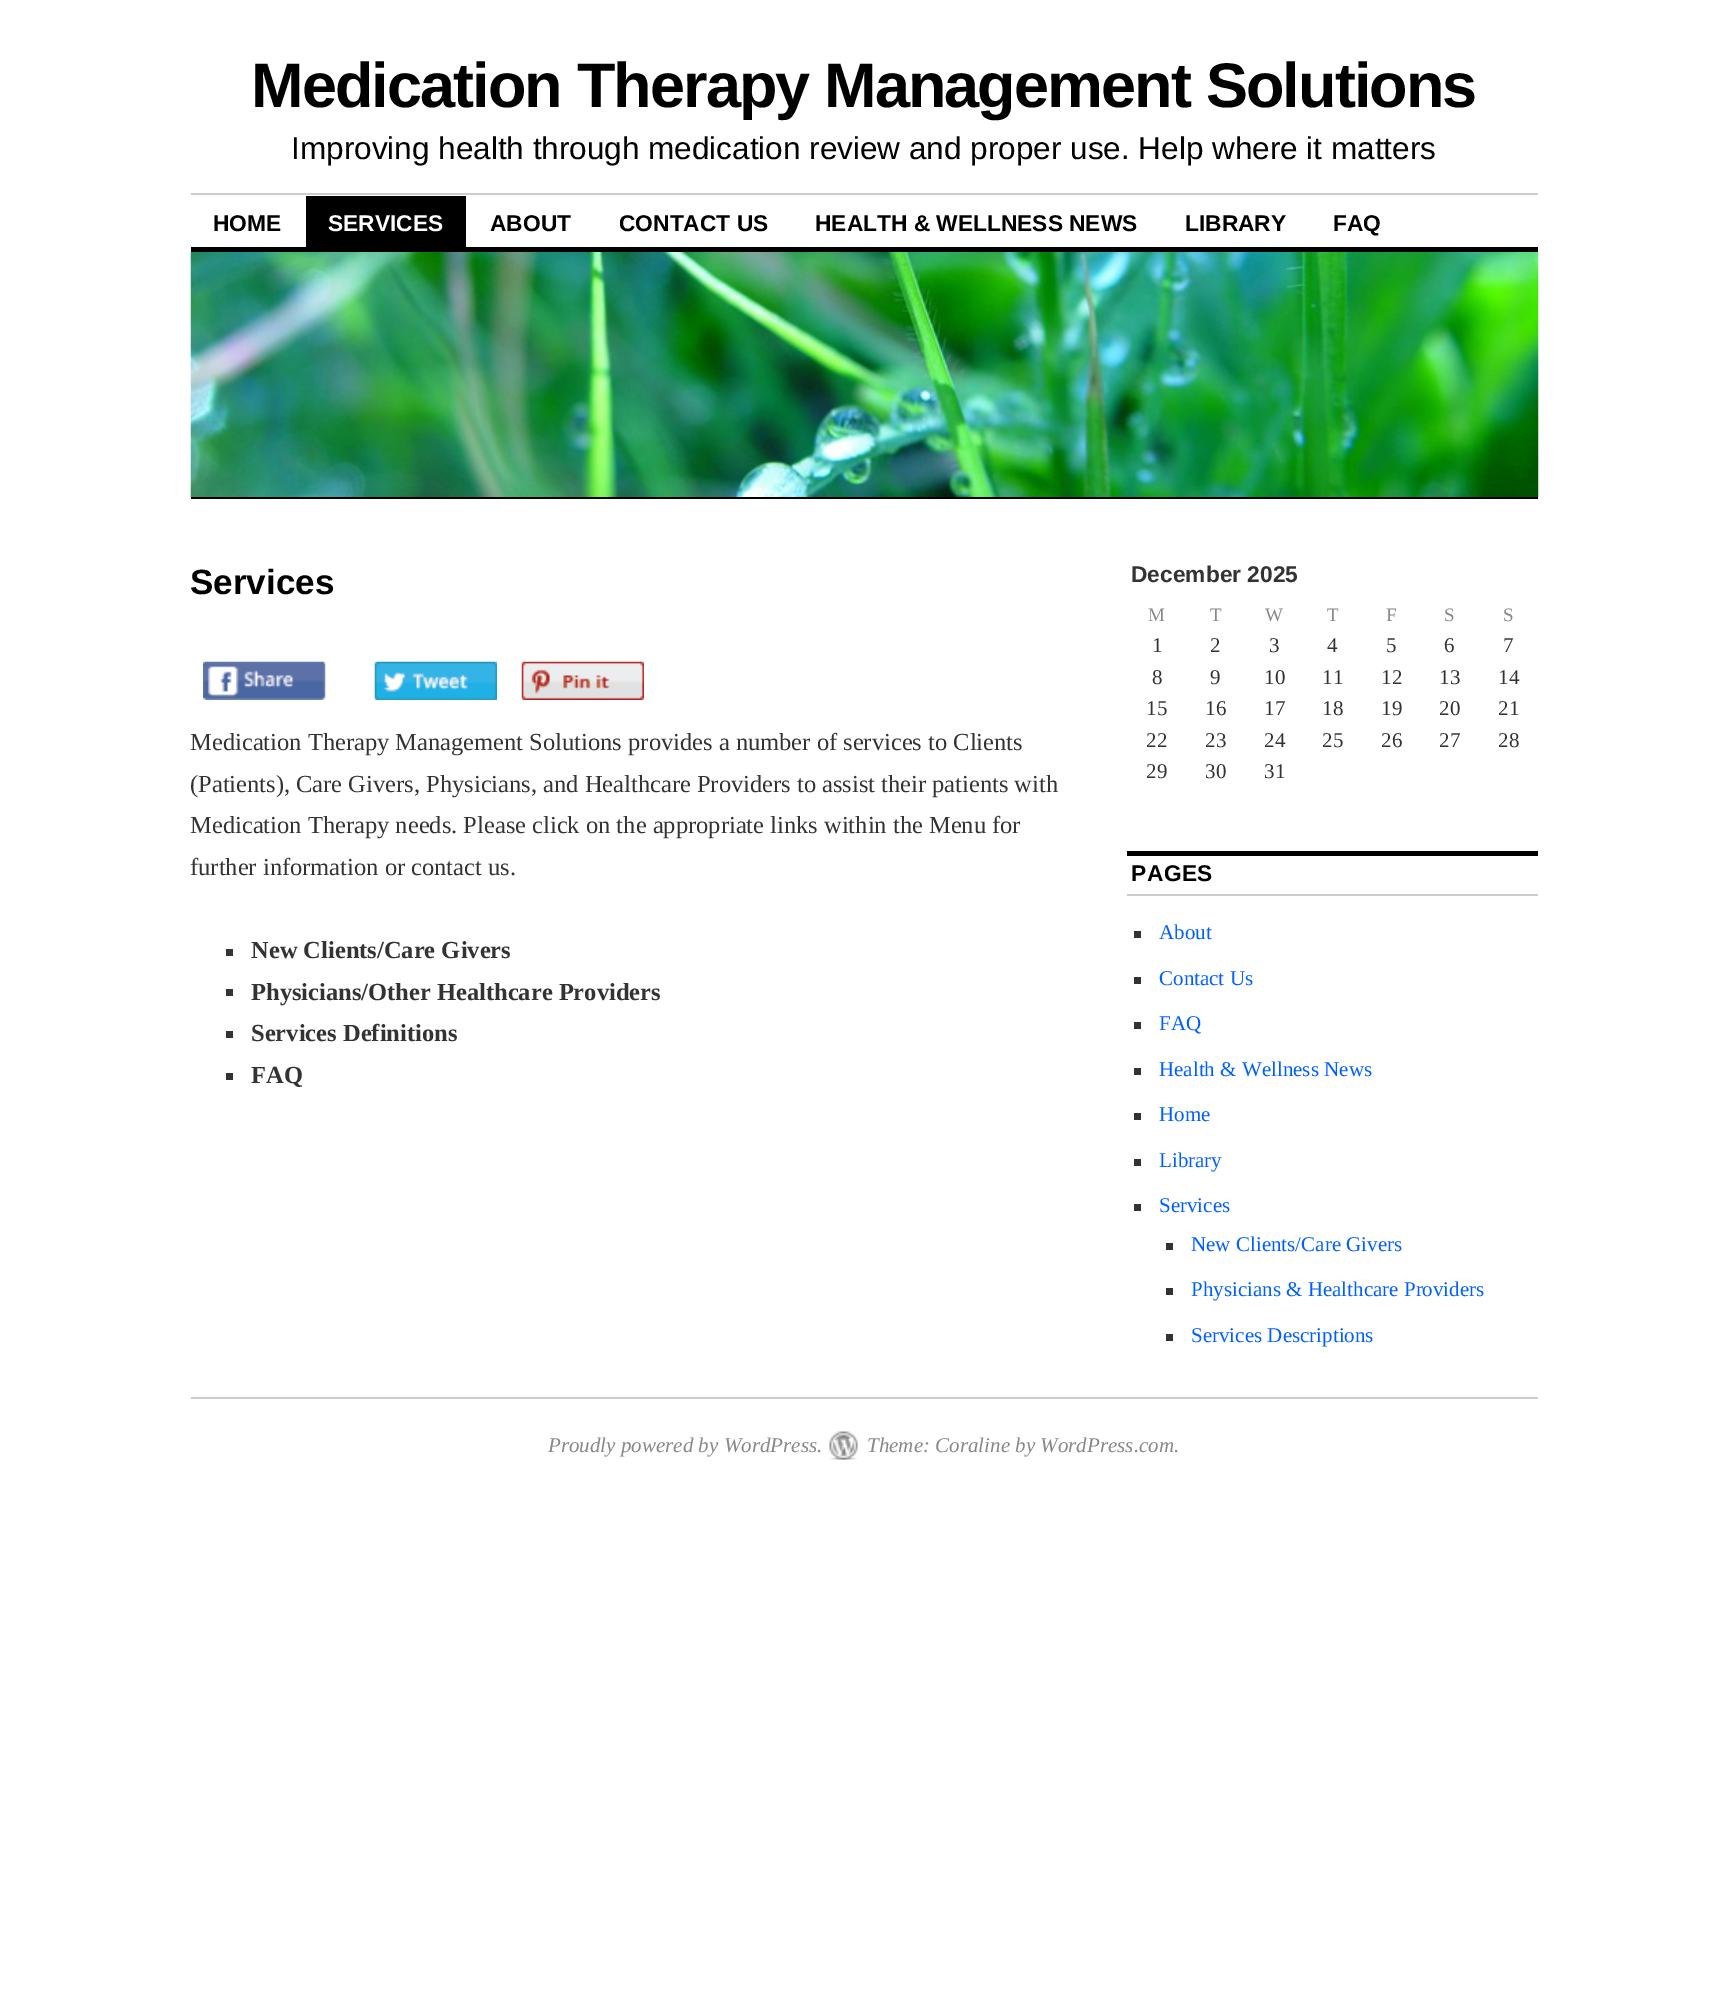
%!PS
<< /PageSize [1726 1991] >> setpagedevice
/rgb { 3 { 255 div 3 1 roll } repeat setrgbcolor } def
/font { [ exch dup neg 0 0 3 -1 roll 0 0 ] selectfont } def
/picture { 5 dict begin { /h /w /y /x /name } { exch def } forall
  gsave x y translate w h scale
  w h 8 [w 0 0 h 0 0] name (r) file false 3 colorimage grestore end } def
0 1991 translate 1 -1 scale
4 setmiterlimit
255 255 255 rgb
0 0 1726 1991 rectfill
[
  [191 193 1347 2 204 204 204]
  [306 196 160 51 0 0 0]
  [191 247 1347 5 0 0 0]
] { aload pop rgb rectfill } forall
(img/1.rgb) 190 252 1349 245 picture
191 497 1347 2 rectfill
(img/2.rgb) 203 661 123 39 picture
(img/3.rgb) 374 661 123 39 picture
(img/4.rgb) 521 661 123 39 picture
[
  [226 949 7 7 51 51 51]
  [226 989 7 7 51 51 51]
  [226 1031 7 7 51 51 51]
  [226 1073 7 7 51 51 51]
  [1127 851 411 5 0 0 0]
  [1127 894 411 2 204 204 204]
  [1134 931 7 7 51 51 51]
  [1134 977 7 7 51 51 51]
  [1134 1022 7 7 51 51 51]
  [1134 1068 7 7 51 51 51]
  [1134 1113 7 7 51 51 51]
  [1134 1159 7 7 51 51 51]
  [1134 1204 7 7 51 51 51]
  [1166 1243 7 7 51 51 51]
  [1166 1288 7 7 51 51 51]
  [1166 1334 7 7 51 51 51]
  [191 1397 1347 2 204 204 204]
] { aload pop rgb rectfill } forall
(img/5.rgb) 829 1431 29 29 picture
/LiberationSans-Bold 63 font
0 0 0 rgb
251 107 moveto -1.9 0 (Medication Therapy Management Solutions) ashow
/LiberationSans-Regular 31.5 font
291 159 moveto (Improving health through medication review and proper use. Help where it matters) show
/LiberationSans-Bold 22.75 font
213 231 moveto (HOME) show
255 255 255 rgb
328 231 moveto (SERVICES) show
0 0 0 rgb
[
  [(ABOUT) 490 231]
  [(CONTACT US) 619 231]
  [(HEALTH & WELLNESS NEWS) 815 231]
  [(LIBRARY) 1185 231]
  [(FAQ) 1333 231]
] { aload pop moveto show } forall
/LiberationSans-Bold 35 font
190 594 moveto (Services) show
/LiberationSerif-Regular 24.5 font
51 51 51 rgb
[
  [(Medication Therapy Management Solutions provides a number of services to Clients) 190 750]
  [(\(Patients\), Care Givers, Physicians, and Healthcare Providers to assist their patients with) 190 792]
  [(Medication Therapy needs. Please click on the appropriate links within the Menu for) 190 833]
  [(further information or contact us.) 190 875]
] { aload pop moveto show } forall
/LiberationSerif-Bold 24.5 font
[
  [(New Clients/Care Givers) 251 958]
  [(Physicians/Other Healthcare Providers) 251 1000]
  [(Services Definitions) 251 1041]
  [(FAQ) 251 1083]
] { aload pop moveto show } forall
/LiberationSans-Bold 22.75 font
1131 582 moveto (December 2025) show
/LiberationSerif-Regular 19 font
136 136 136 rgb
[
  [(M) 1148 621]
  [(T) 1210 621]
  [(W) 1265 621]
  [(T) 1327 621]
  [(F) 1386 621]
  [(S) 1444 621]
  [(S) 1503 621]
] { aload pop moveto show } forall
/LiberationSerif-Regular 21 font
51 51 51 rgb
[
  [(1) 1152 652]
  [(2) 1210 652]
  [(3) 1269 652]
  [(4) 1327 652]
  [(5) 1386 652]
  [(6) 1444 652]
  [(7) 1503 652]
  [(8) 1152 684]
  [(9) 1210 684]
  [(10) 1264 684]
  [(11) 1322 684]
  [(12) 1381 684]
  [(13) 1439 684]
  [(14) 1498 684]
  [(15) 1146 715]
  [(16) 1205 715]
  [(17) 1264 715]
  [(18) 1322 715]
  [(19) 1381 715]
  [(20) 1439 715]
  [(21) 1498 715]
  [(22) 1146 747]
  [(23) 1205 747]
  [(24) 1264 747]
  [(25) 1322 747]
  [(26) 1381 747]
  [(27) 1439 747]
  [(28) 1498 747]
  [(29) 1146 778]
  [(30) 1205 778]
  [(31) 1264 778]
] { aload pop moveto show } forall
/LiberationSans-Bold 22.75 font
0 0 0 rgb
1131 881 moveto 0.5 0 (PAGES) ashow
/LiberationSerif-Regular 21 font
0 96 255 rgb
[
  [(About) 1159 939]
  [(Contact Us) 1159 985]
  [(FAQ) 1159 1030]
  [(Health & Wellness News) 1159 1076]
  [(Home) 1159 1121]
  [(Library) 1159 1167]
  [(Services) 1159 1212]
  [(New Clients/Care Givers) 1191 1251]
  [(Physicians & Healthcare Providers) 1191 1296]
  [(Services Descriptions) 1191 1342]
] { aload pop moveto show } forall
/LiberationSerif-Italic 21 font
136 136 136 rgb
548 1452 moveto (Proudly powered by WordPress.) show
867 1452 moveto (Theme: Coraline by WordPress.com.) show
showpage
